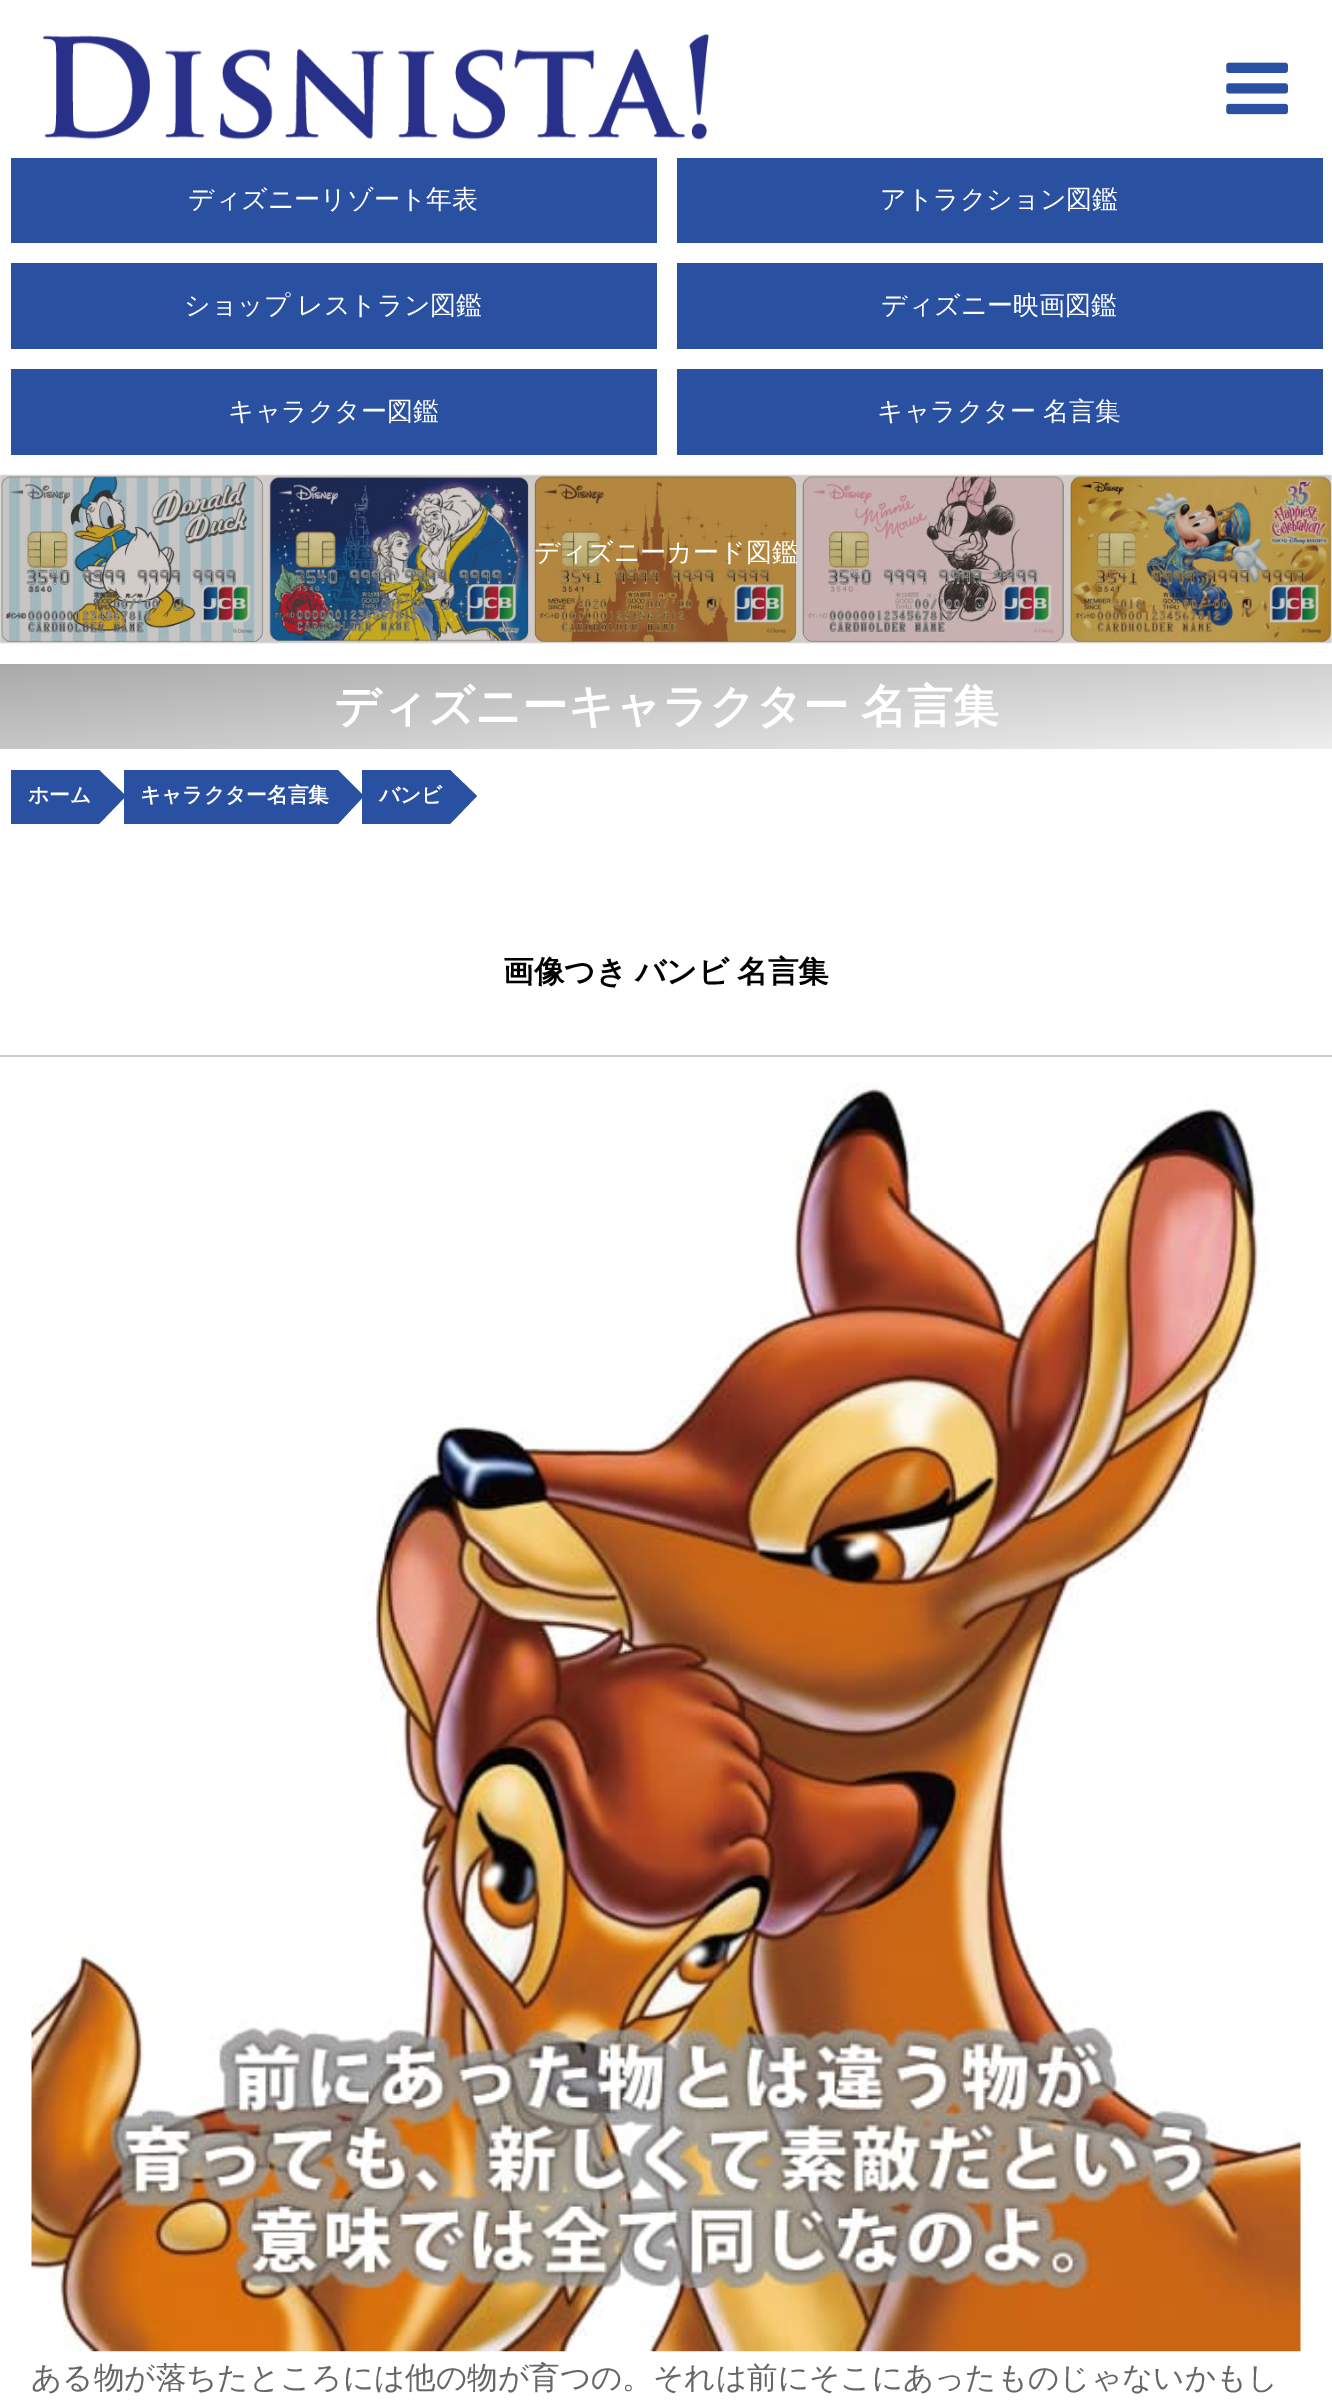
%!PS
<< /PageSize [1332 2406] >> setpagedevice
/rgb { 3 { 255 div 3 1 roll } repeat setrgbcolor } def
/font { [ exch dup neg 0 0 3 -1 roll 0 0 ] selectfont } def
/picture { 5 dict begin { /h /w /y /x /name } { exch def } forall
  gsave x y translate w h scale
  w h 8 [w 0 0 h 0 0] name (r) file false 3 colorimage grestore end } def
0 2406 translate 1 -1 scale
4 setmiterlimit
255 255 255 rgb
0 0 1332 2406 rectfill
(img/1.rgb) 43 34 666 106 picture
(img/2.rgb) 1226 62 62 53 picture
[
  [11 158 646 85 42 80 161]
  [677 158 646 85 42 80 161]
  [11 263 646 86 42 80 161]
  [677 263 646 86 42 80 161]
  [11 369 646 86 42 80 161]
  [677 369 646 86 42 80 161]
] { aload pop rgb rectfill } forall
(img/3.rgb) 0 474 1332 170 picture
gsave 0 664 moveto 1332 664 lineto 1332 749 lineto 0 749 lineto closepath clip newpath
<< /ShadingType 2 /ColorSpace /DeviceRGB /Coords [657 606 675 807] /Extend [true true] /Function << /FunctionType 2 /Domain [0 1] /C0 [0.667 0.667 0.667] /C1 [0.933 0.933 0.933] /N 1 >> >> shfill grestore
11 770 88 54 rectfill
99 824 moveto 99 770 lineto 126 796 lineto closepath fill
124 770 214 54 rectfill
338 824 moveto 338 770 lineto 364 796 lineto closepath fill
362 770 88 54 rectfill
450 824 moveto 450 770 lineto 477 796 lineto closepath fill
204 204 204 rgb
0 1055 1332 2 rectfill
(img/4.rgb) 31 1082 1270 1270 picture
/WenQuanYiZenHei-Medium 26 font
255 255 255 rgb
188 208 moveto (ディズニーリゾート年表) show
880 208 moveto (アトラクション図鑑) show
184 314 moveto -1 0 32 (ショップ レストラン図鑑) widthshow
881 314 moveto (ディズニー映画図鑑) show
228 420 moveto (キャラクター図鑑) show
877 420 moveto -1 0 32 (キャラクター 名言集) widthshow
534 561 moveto (ディズニーカード図鑑) show
/WenQuanYiZenHei-Bold 45.9 font
334 722 moveto -1 0 32 (ディズニーキャラクター 名言集) widthshow
/WenQuanYiZenHei-Bold 20.75 font
[
  [(ホーム) 28 802]
  [(キャラクター名言集) 140 802]
  [(バンビ) 379 802]
] { aload pop moveto show } forall
/WenQuanYiZenHei-Bold 30.6 font
0 0 0 rgb
503 982 moveto -1 0 32 (画像つき バンビ 名言集) widthshow
/WenQuanYiZenHei-Medium 30.6 font
102 102 102 rgb
31 2388 moveto (ある物が落ちたところには他の物が育つの。それは前にそこにあったものじゃないかもし) show
showpage
